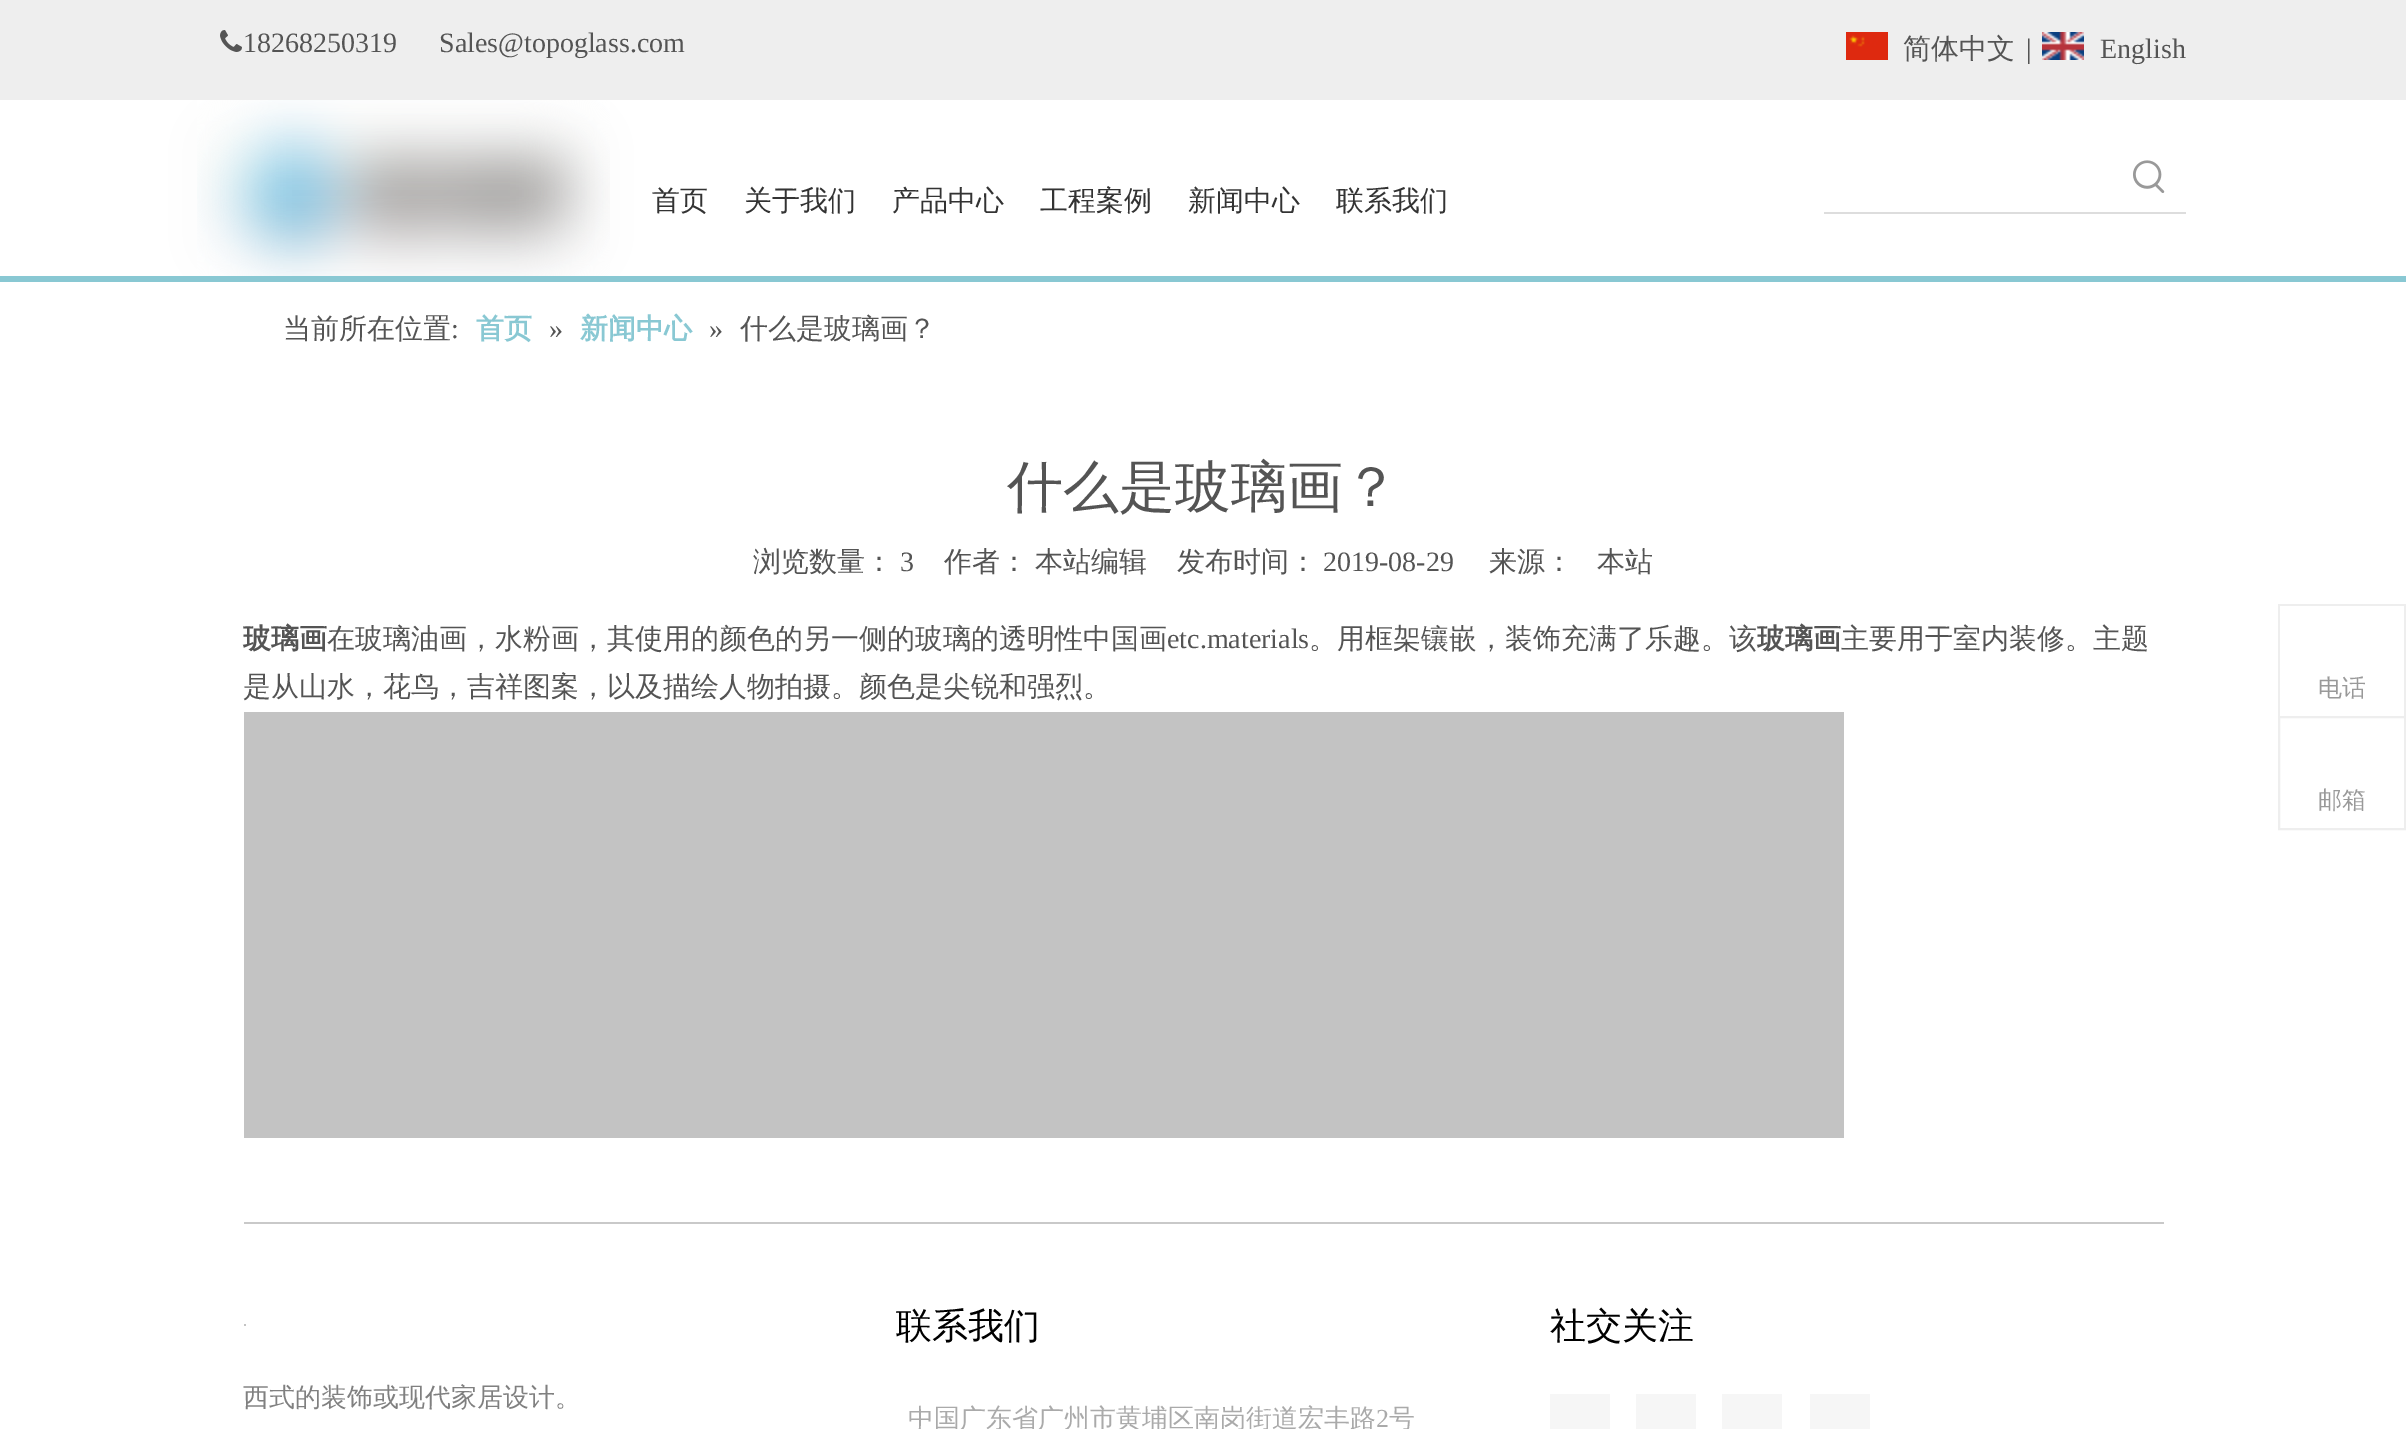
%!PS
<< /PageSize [2406 1429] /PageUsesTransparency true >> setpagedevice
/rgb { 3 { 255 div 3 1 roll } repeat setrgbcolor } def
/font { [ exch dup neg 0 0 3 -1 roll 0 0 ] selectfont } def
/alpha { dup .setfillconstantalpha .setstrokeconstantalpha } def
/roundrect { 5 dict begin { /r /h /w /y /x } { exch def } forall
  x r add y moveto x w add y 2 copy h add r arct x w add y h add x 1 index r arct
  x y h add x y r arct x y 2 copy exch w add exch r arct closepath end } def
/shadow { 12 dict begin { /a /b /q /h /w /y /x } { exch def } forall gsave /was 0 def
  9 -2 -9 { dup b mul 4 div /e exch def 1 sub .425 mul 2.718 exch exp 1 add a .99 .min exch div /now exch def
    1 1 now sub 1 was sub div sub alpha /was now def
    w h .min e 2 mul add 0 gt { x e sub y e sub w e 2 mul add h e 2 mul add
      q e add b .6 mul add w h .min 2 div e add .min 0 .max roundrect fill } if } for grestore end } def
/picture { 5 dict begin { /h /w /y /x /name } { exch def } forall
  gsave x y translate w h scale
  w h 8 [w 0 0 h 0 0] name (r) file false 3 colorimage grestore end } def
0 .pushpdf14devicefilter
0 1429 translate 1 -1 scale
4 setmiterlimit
255 255 255 rgb
0 0 2406 1429 rectfill
238 238 238 rgb
0 0 2406 100 rectfill
(img/1.rgb) 220 30 22 22 picture
(img/2.rgb) 1846 32 42 28 picture
(img/3.rgb) 2042 32 42 28 picture
137 200 211 rgb
0 276 2406 6 rectfill
gsave
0 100 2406 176 rectclip
240 241 242 rgb
220 136 362 114 0 30 1 shadow
grestore
(img/4.rgb) 197 100 413 176 picture
221 221 221 rgb
1824 212 362 2 rectfill
(img/5.rgb) 2133 160 32 33 picture
[
  [244 712 1600 426 195 195 195]
  [2278 604 128 2 238 238 238]
  [2404 604 2 112 238 238 238]
  [2278 604 2 112 238 238 238]
] { aload pop rgb rectfill } forall
2 setlinewidth
2279 717 126 112 rectstroke
[
  [244 1222 1920 2 201 201 201]
  [244 1324 2 2 195 195 195]
  [1550 1394 60 35 246 246 246]
  [1636 1394 60 35 246 246 246]
  [1722 1394 60 35 246 246 246]
  [1810 1394 60 35 246 246 246]
] { aload pop rgb rectfill } forall
/LiberationSerif-Regular 28 font
84 84 84 rgb
243 52 moveto (18268250319      Sales@topoglass.com) show
/WenQuanYiZenHei-Medium 28 font
1903 58 moveto (简体中文) show
/LiberationSerif-Regular 28 font
2026 58 moveto (|) show
2100 58 moveto (English) show
/WenQuanYiZenHei-Medium 28 font
51 51 51 rgb
[
  [(首页) 652 210]
  [(关于我们) 744 210]
  [(产品中心) 892 210]
  [(工程案例) 1040 210]
  [(新闻中心) 1188 210]
  [(联系我们) 1336 210]
] { aload pop moveto show } forall
84 84 84 rgb
283 338 moveto (当前所在位置) show
/LiberationSerif-Regular 28 font
451 338 moveto (:) show
/WenQuanYiZenHei-Bold 28 font
137 200 211 rgb
476 338 moveto (首页) show
/LiberationSerif-Regular 28 font
84 84 84 rgb
549 338 moveto (») show
/WenQuanYiZenHei-Bold 28 font
137 200 211 rgb
580 338 moveto (新闻中心) show
/LiberationSerif-Regular 28 font
84 84 84 rgb
709 338 moveto (») show
/WenQuanYiZenHei-Medium 28 font
740 338 moveto (什么是玻璃画？) show
/WenQuanYiZenHei-Medium 56 font
1007 506 moveto (什么是玻璃画？) show
/WenQuanYiZenHei-Medium 28 font
753 571 moveto (浏览数量：) show
/LiberationSerif-Regular 28 font
900 571 moveto (3) show
/WenQuanYiZenHei-Medium 28 font
944 571 moveto -1 0 32 (作者： 本站编辑) widthshow
1177 571 moveto (发布时间：) show
/LiberationSerif-Regular 28 font
1323 571 moveto (2019-08-29) show
/WenQuanYiZenHei-Medium 28 font
1489 571 moveto (来源：) show
1597 571 moveto (本站) show
/WenQuanYiZenHei-Bold 28 font
243 648 moveto (玻璃画) show
/WenQuanYiZenHei-Medium 28 font
327 648 moveto (在玻璃油画，水粉画，其使用的颜色的另一侧的玻璃的透明性中国画) show
/LiberationSerif-Regular 28 font
1167 648 moveto (etc.materials) show
/WenQuanYiZenHei-Medium 28 font
1309 648 moveto (。用框架镶嵌，装饰充满了乐趣。该) show
/WenQuanYiZenHei-Bold 28 font
1757 648 moveto (玻璃画) show
/WenQuanYiZenHei-Medium 28 font
1841 648 moveto (主要用于室内装修。主题) show
243 696 moveto (是从山水，花鸟，吉祥图案，以及描绘人物拍摄。颜色是尖锐和强烈。) show
/WenQuanYiZenHei-Medium 24 font
153 153 153 rgb
2318 696 moveto (电话) show
2318 808 moveto (邮箱) show
/WenQuanYiZenHei-Medium 26 font
128 128 128 rgb
243 1406 moveto (西式的装饰或现代家居设计。) show
/WenQuanYiZenHei-Medium 36 font
0 0 0 rgb
896 1338 moveto (联系我们) show
/WenQuanYiZenHei-Medium 26 font
170 170 170 rgb
908 1427 moveto (中国广东省广州市黄埔区南岗街道宏丰路) show
/LiberationSerif-Regular 26 font
1376 1427 moveto (2) show
/WenQuanYiZenHei-Medium 26 font
1389 1427 moveto (号) show
/WenQuanYiZenHei-Medium 36 font
0 0 0 rgb
1550 1338 moveto (社交关注) show
.poppdf14devicefilter showpage
